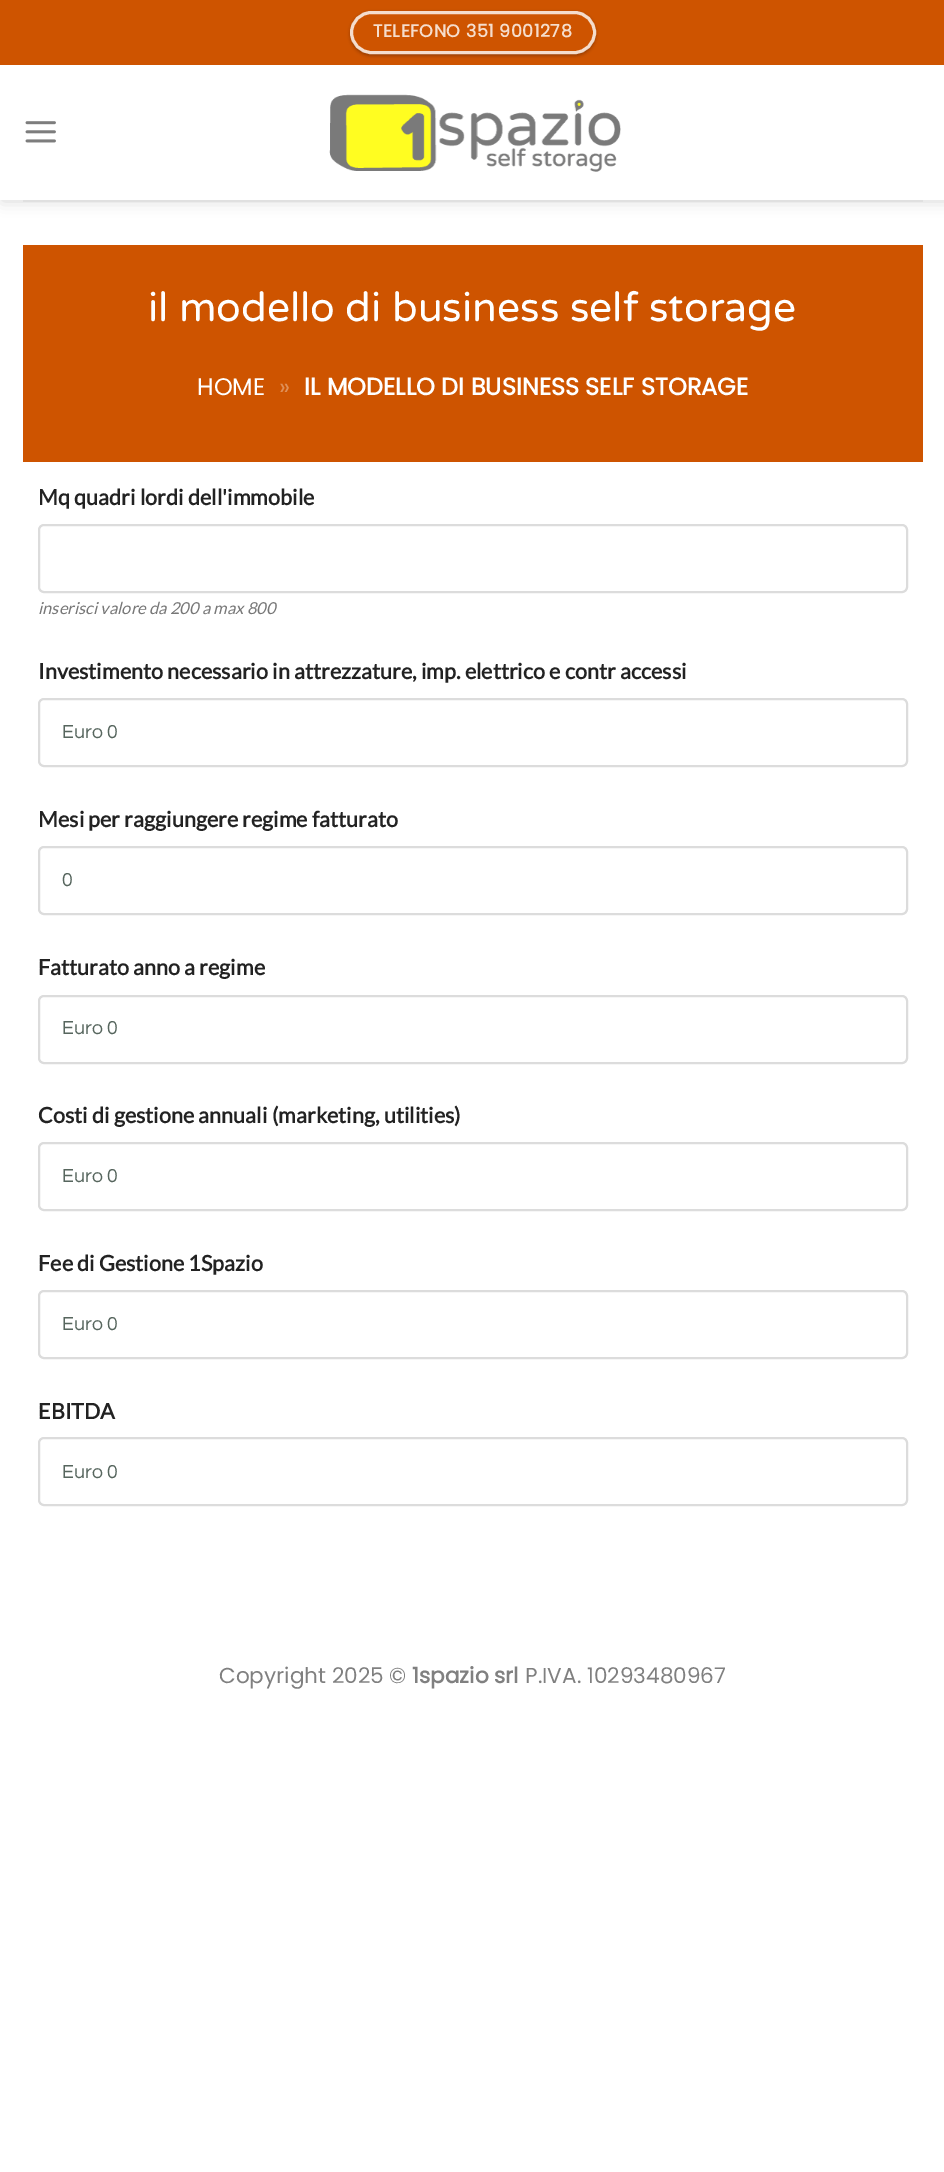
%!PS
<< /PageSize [944 2172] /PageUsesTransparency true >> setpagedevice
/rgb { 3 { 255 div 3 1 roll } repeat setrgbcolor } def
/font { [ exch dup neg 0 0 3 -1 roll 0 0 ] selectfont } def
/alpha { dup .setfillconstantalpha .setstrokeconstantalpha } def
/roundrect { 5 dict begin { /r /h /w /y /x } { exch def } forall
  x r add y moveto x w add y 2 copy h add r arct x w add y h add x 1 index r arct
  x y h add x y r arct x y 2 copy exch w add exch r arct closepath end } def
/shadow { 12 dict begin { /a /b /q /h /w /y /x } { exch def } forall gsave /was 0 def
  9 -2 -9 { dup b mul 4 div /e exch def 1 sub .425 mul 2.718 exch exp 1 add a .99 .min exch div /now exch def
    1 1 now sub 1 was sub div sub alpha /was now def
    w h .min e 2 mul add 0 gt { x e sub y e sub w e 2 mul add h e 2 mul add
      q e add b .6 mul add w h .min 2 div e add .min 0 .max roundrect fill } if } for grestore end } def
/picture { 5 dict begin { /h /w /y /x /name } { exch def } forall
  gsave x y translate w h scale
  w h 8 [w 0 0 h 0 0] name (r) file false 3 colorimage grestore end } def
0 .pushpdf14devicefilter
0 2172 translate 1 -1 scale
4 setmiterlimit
255 255 255 rgb
0 0 944 2172 rectfill
0 0 0 rgb
2 2 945 199 0 7.5 0.15 shadow
206 84 0 rgb
0 0 944 65 rectfill
gsave
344 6 moveto 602 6 lineto 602 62 lineto 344 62 lineto closepath 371.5 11 moveto 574.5 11 lineto 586.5 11 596 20.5 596 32.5 curveto 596 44.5 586.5 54 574.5 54 curveto 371.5 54 lineto 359.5 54 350 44.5 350 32.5 curveto 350 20.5 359.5 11 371.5 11 curveto closepath eoclip newpath
0 0 0 rgb
350 12 246 44 22 1.5 0.24 shadow
grestore
0.8 alpha
255 255 255 rgb
3 setlinewidth
351.5 12.5 243 40 20 roundrect stroke
1 alpha
0 65 944 135 rectfill
(img/1.rgb) 25 121 31 22 picture
(img/2.rgb) 329 94 292 78 picture
224 224 224 rgb
23 200 900 2 rectfill
206 84 0 rgb
23 245 900 217 rectfill
220 220 220 rgb
2 setlinewidth
39 525 868 67 5 roundrect stroke
39 699 868 67 5 roundrect stroke
39 847 868 67 5 roundrect stroke
39 996 868 67 5 roundrect stroke
39 1143 868 67 5 roundrect stroke
39 1291 868 67 5 roundrect stroke
39 1438 868 67 5 roundrect stroke
/Poppins-Bold 17.5 font
245 221 204 rgb
373 37 moveto 0.5 0 (TELEFONO 351 9001278) ashow
/VarelaRound-Regular 40.75 font
255 255 255 rgb
148 321 moveto (il modello di business self storage) show
/Poppins-Regular 24 font
197 395 moveto (HOME) show
223 144 89 rgb
279 395 moveto (») show
/Poppins-Bold 24 font
255 255 255 rgb
304 395 moveto (IL MODELLO DI BUSINESS SELF STORAGE) show
/Lato-Bold 21.6 font
34 34 34 rgb
38 505 moveto (Mq quadri lordi dell'immobile) show
/Lato-Italic 16.5 font
119 119 119 rgb
38 614 moveto (inserisci valore da 200 a max 800) show
/Lato-Bold 21.6 font
34 34 34 rgb
38 679 moveto (Investimento necessario in attrezzature, imp. elettrico e contr accessi) show
/Questrial-Regular 19.5 font
87 102 94 rgb
62 738 moveto (Euro 0) show
/Lato-Bold 21.6 font
34 34 34 rgb
38 827 moveto (Mesi per raggiungere regime fatturato) show
/Questrial-Regular 19.5 font
87 102 94 rgb
62 886 moveto (0) show
/Lato-Bold 21.6 font
34 34 34 rgb
38 975 moveto (Fatturato anno a regime) show
/Questrial-Regular 19.5 font
87 102 94 rgb
62 1034 moveto (Euro 0) show
/Lato-Bold 21.6 font
34 34 34 rgb
38 1123 moveto (Costi di gestione annuali \(marketing, utilities\)) show
/Questrial-Regular 19.5 font
87 102 94 rgb
62 1182 moveto (Euro 0) show
/Lato-Bold 21.6 font
34 34 34 rgb
38 1271 moveto (Fee di Gestione 1Spazio) show
/Questrial-Regular 19.5 font
87 102 94 rgb
62 1330 moveto (Euro 0) show
/Lato-Bold 21.6 font
34 34 34 rgb
38 1419 moveto (EBITDA) show
/Questrial-Regular 19.5 font
87 102 94 rgb
62 1478 moveto (Euro 0) show
/Poppins-Regular 21.6 font
128 128 128 rgb
219 1683 moveto (Copyright 2025 ©) show
/Poppins-Bold 21.6 font
412 1683 moveto (1spazio srl) show
/Poppins-Regular 21.6 font
525 1683 moveto (P.IVA. 10293480967) show
.poppdf14devicefilter showpage
